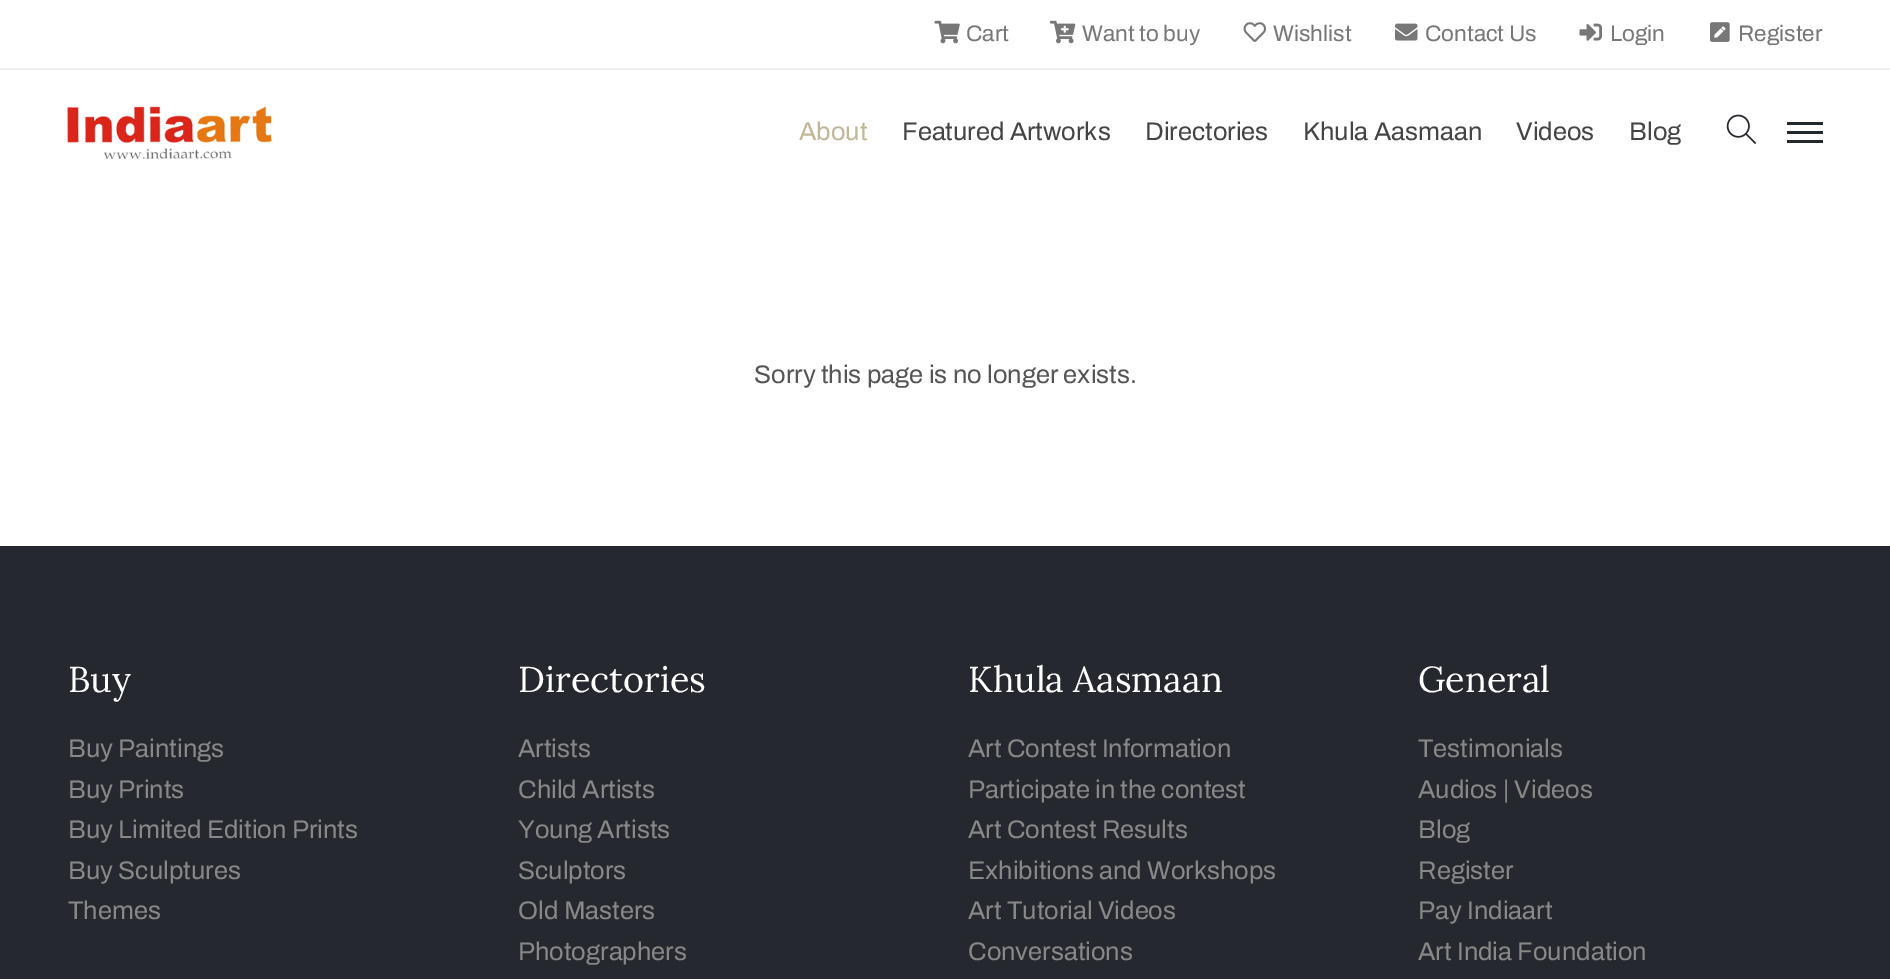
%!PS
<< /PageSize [1890 979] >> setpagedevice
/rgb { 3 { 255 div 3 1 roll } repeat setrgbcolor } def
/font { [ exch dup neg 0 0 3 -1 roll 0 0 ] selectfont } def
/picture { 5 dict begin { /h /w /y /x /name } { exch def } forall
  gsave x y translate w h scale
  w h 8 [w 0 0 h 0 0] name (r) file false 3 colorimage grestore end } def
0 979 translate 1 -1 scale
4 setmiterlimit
255 255 255 rgb
0 0 1890 979 rectfill
238 238 238 rgb
0 68 1890 2 rectfill
(img/1.rgb) 934 20 26 24 picture
(img/2.rgb) 1050 20 26 24 picture
(img/3.rgb) 1243 22 23 20 picture
(img/4.rgb) 1395 23 23 18 picture
(img/5.rgb) 1579 23 23 18 picture
(img/6.rgb) 1710 22 20 20 picture
(img/7.rgb) 67 106 205 53 picture
(img/8.rgb) 1726 114 31 30 picture
[
  [1787 122 36 3 37 40 46]
  [1787 131 36 3 37 40 46]
  [1787 140 36 3 37 40 46]
  [0 546 1890 433 37 40 46]
] { aload pop rgb rectfill } forall
/Archivo-Regular 22.5 font
119 119 119 rgb
[
  [(Cart) 966 41]
  [(Want to buy) 1082 41]
  [(Wishlist) 1273 41]
  [(Contact Us) 1425 41]
  [(Login) 1610 41]
  [(Register) 1738 41]
] { aload pop moveto show } forall
/Archivo-Regular 25.5 font
193 182 150 rgb
799 140 moveto (About) show
68 68 68 rgb
[
  [(Featured Artworks) 902 140]
  [(Directories) 1145 140]
  [(Khula Aasmaan) 1303 140]
  [(Videos) 1516 140]
  [(Blog) 1629 140]
] { aload pop moveto show } forall
85 85 85 rgb
754 383 moveto (Sorry this page is no longer exists.) show
/Lora-Regular 36 font
255 255 255 rgb
68 692 moveto (Buy) show
/Archivo-Regular 25.5 font
136 136 136 rgb
[
  [(Buy Paintings) 68 757]
  [(Buy Prints) 68 798]
  [(Buy Limited Edition Prints) 68 838]
  [(Buy Sculptures) 68 879]
  [(Themes) 68 919]
] { aload pop moveto show } forall
/Lora-Regular 36 font
255 255 255 rgb
518 692 moveto (Directories) show
/Archivo-Regular 25.5 font
136 136 136 rgb
[
  [(Artists) 518 757]
  [(Child Artists) 518 798]
  [(Young Artists) 518 838]
  [(Sculptors) 518 879]
  [(Old Masters) 518 919]
  [(Photographers) 518 960]
] { aload pop moveto show } forall
/Lora-Regular 36 font
255 255 255 rgb
968 692 moveto (Khula Aasmaan) show
/Archivo-Regular 25.5 font
136 136 136 rgb
[
  [(Art Contest Information) 968 757]
  [(Participate in the contest) 968 798]
  [(Art Contest Results) 968 838]
  [(Exhibitions and Workshops) 968 879]
  [(Art Tutorial Videos) 968 919]
  [(Conversations) 968 960]
] { aload pop moveto show } forall
/Lora-Regular 36 font
255 255 255 rgb
1418 692 moveto (General) show
/Archivo-Regular 25.5 font
136 136 136 rgb
[
  [(Testimonials) 1418 757]
  [(Audios | Videos) 1418 798]
  [(Blog) 1418 838]
  [(Register) 1418 879]
  [(Pay Indiaart) 1418 919]
  [(Art India Foundation) 1418 960]
] { aload pop moveto show } forall
showpage
